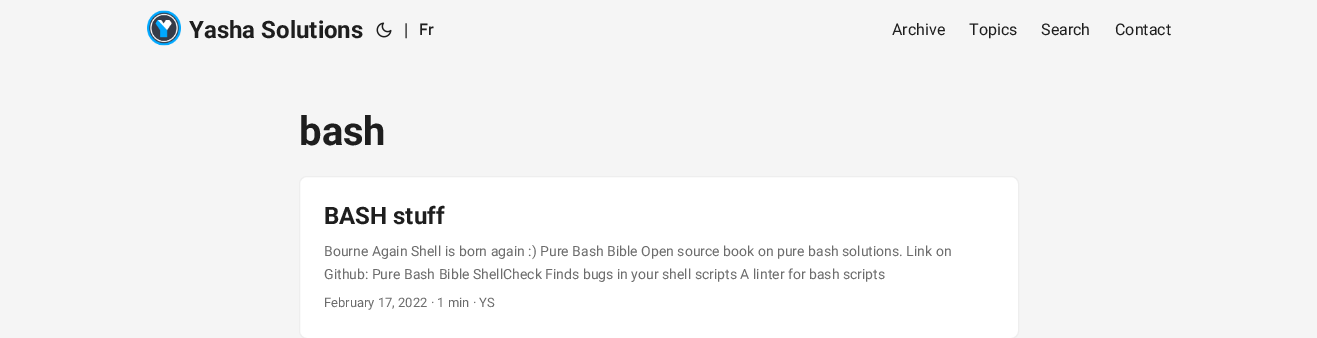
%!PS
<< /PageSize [1317 338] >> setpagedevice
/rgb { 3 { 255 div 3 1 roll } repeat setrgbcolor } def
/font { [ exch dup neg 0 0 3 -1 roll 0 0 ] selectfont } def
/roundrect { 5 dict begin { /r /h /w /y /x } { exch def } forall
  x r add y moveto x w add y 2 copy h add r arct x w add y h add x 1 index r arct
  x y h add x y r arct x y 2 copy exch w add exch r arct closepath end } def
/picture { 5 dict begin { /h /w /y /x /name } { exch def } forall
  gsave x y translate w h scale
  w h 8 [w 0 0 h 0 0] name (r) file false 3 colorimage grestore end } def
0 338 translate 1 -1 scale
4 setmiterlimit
245 245 245 rgb
0 0 1317 338 rectfill
(img/1.rgb) 147 10 34 36 picture
(img/2.rgb) 376 22 16 16 picture
255 255 255 rgb
299.5 176.5 719 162 7.5 roundrect gsave fill grestore
238 238 238 rgb
stroke
/Roboto-Bold 24 font
30 30 30 rgb
189 38 moveto (Yasha Solutions) show
/Roboto-Regular 18 font
404 36 moveto (|) show
/Roboto-Medium 16 font
419 35 moveto (Fr) show
/Roboto-Regular 16 font
[
  [(Archive) 892 35]
  [(Topics) 969 35]
  [(Search) 1041 35]
  [(Contact) 1115 35]
] { aload pop moveto show } forall
/Roboto-Bold 40 font
299 145 moveto (bash) show
/Roboto-Bold 24 font
324 224 moveto (BASH stuff) show
/Roboto-Regular 14 font
108 108 108 rgb
324 256 moveto (Bourne Again Shell is born again :\) Pure Bash Bible Open source book on pure bash solutions. Link on) show
324 279 moveto (Github: Pure Bash Bible ShellCheck Finds bugs in your shell scripts A linter for bash scripts) show
/Roboto-Regular 13 font
324 307 moveto (February 17, 2022 · 1 min · YS) show
showpage
